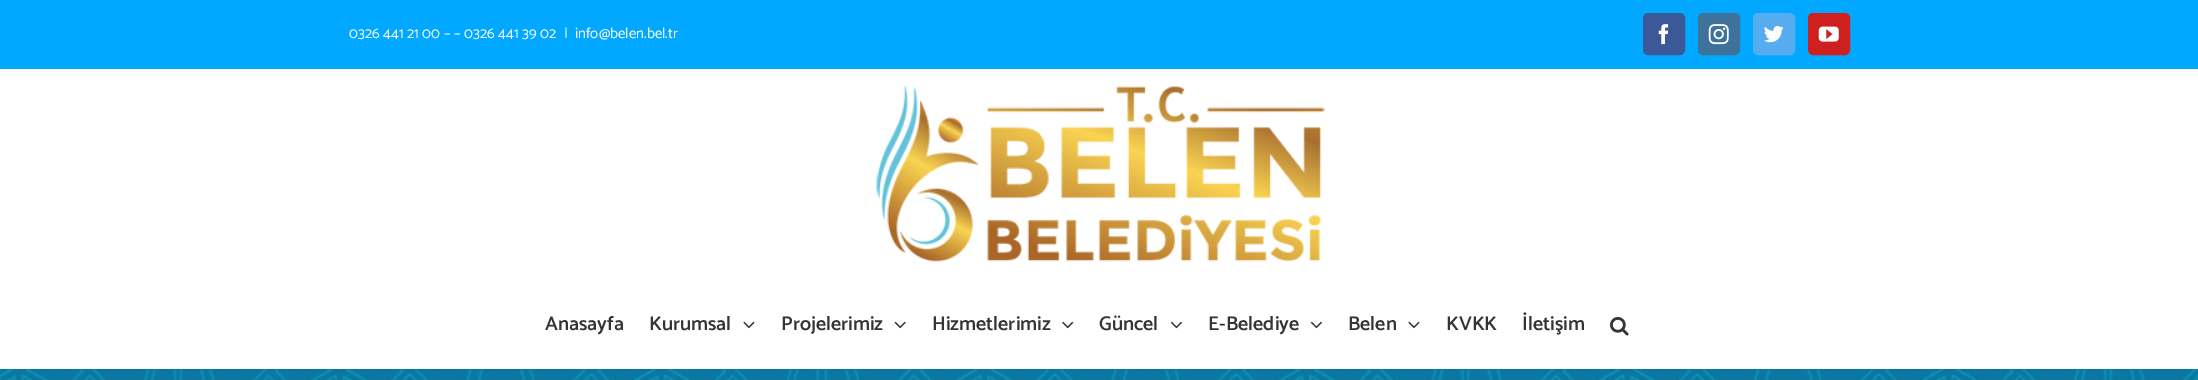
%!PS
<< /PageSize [2198 380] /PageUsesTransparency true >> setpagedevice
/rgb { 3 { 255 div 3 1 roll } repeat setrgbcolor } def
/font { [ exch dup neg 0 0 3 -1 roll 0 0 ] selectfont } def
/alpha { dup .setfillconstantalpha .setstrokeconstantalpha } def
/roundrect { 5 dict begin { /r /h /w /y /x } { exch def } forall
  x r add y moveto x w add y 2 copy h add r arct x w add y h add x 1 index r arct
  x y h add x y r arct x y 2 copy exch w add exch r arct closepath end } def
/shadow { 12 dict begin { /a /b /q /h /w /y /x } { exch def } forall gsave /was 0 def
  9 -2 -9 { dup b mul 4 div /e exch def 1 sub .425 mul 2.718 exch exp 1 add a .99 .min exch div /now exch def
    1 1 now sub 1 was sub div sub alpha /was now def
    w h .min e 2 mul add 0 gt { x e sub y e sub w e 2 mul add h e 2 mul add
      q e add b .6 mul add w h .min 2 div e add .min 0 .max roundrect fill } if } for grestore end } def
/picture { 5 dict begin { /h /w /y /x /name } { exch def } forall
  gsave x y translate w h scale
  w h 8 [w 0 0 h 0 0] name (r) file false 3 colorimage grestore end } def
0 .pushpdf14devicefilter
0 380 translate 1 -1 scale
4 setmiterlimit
255 255 255 rgb
0 0 2198 380 rectfill
(img/11.rgb) 0 369 2198 11 picture
0 0 0 rgb
3 15 2193 364 0 31 0.14 shadow
0 168 255 rgb
0 0 2198 69 rectfill
59 89 152 rgb
1643.5 13.5 41 41 4.5 roundrect gsave fill grestore
stroke
(img/1.rgb) 1658 24 11 21 picture
63 114 155 rgb
1698.5 13.5 41 41 4.5 roundrect gsave fill grestore
stroke
(img/2.rgb) 1708 24 21 21 picture
85 172 238 rgb
1753.5 13.5 41 41 4.5 roundrect gsave fill grestore
stroke
(img/3.rgb) 1764 26 20 17 picture
205 32 31 rgb
1808.5 13.5 41 41 4.5 roundrect gsave fill grestore
stroke
(img/4.rgb) 1818 26 21 16 picture
255 255 255 rgb
0 69 2198 300 rectfill
(img/5.rgb) 876 85 450 177 picture
(img/6.rgb) 743 321 12 8 picture
(img/7.rgb) 894 321 12 8 picture
(img/8.rgb) 1062 321 12 8 picture
(img/9.rgb) 1170 321 12 8 picture
(img/9.rgb) 1310 321 12 8 picture
(img/6.rgb) 1408 321 12 8 picture
(img/10.rgb) 1610 317 19 19 picture
/Catamaran-Regular 15 font
[
  [(0326 441 21 00 – – 0326 441 39 02) 349 38]
  [(|) 564 38]
  [(info@belen.bel.tr) 575 38]
] { aload pop moveto show } forall
/Catamaran-SemiBold 20 font
51 51 56 rgb
[
  [(Anasayfa) 545 330]
  [(Kurumsal) 649 330]
  [(Projelerimiz) 781 330]
  [(Hizmetlerimiz) 932 330]
  [(Güncel) 1099 330]
  [(E-Belediye) 1208 330]
  [(Belen) 1348 330]
  [(KVKK) 1446 330]
  [(İletişim) 1522 330]
] { aload pop moveto show } forall
.poppdf14devicefilter showpage
